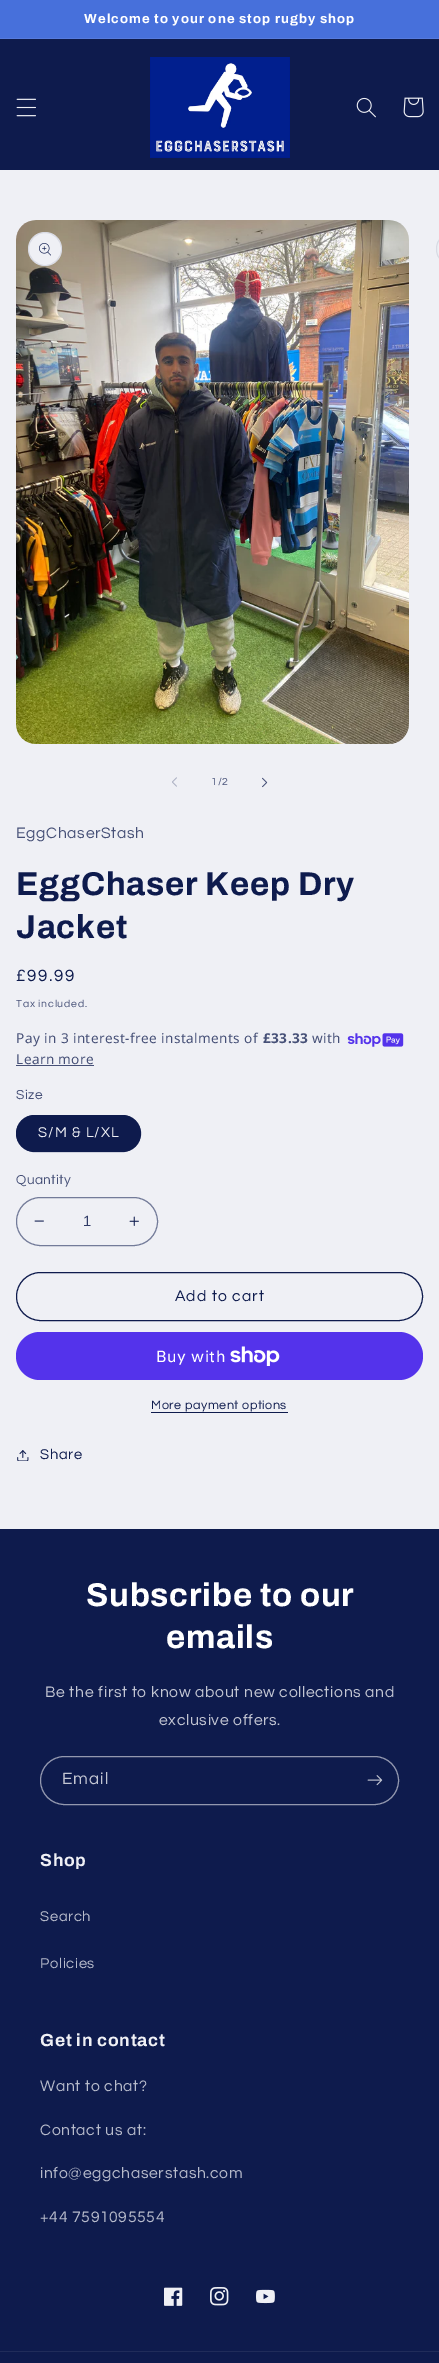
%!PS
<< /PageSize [439 2363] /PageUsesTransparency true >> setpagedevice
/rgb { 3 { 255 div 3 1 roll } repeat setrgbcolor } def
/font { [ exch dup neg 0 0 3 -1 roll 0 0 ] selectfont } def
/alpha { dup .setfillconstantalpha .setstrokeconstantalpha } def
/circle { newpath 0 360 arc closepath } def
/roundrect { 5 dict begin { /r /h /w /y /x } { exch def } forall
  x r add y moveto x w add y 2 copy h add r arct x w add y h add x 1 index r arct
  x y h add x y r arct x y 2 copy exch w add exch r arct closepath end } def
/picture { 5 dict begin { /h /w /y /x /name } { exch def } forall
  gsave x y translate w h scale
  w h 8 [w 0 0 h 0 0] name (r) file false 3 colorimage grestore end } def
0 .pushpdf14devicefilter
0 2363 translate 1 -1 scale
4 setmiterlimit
239 240 245 rgb
0 0 439 2363 rectfill
[
  [0 0 439 38 71 112 219]
  [0 38 439 1 86 123 222]
  [0 39 439 131 14 27 77]
] { aload pop rgb rectfill } forall
(img/1.rgb) 16 98 20 19 picture
(img/2.rgb) 150 57 140 101 picture
(img/3.rgb) 356 97 20 21 picture
(img/4.rgb) 403 97 21 21 picture
(img/5.rgb) 16 220 393 524 picture
239 240 245 rgb
45 249 17 circle fill
0.1 alpha
14 27 77 rgb
45 249 16.5 circle stroke
1 alpha
(img/6.rgb) 39 243 12 13 picture
216 219 228 rgb
436.5 232.5 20 33 16 roundrect stroke
(img/7.rgb) 172 777 5 10 picture
(img/8.rgb) 262 777 6 11 picture
(img/9.rgb) 347 1033 57 14 picture
70 80 119 rgb
16 1065 78 1 rectfill
14 27 77 rgb
16 1115 125 37 18.5 roundrect fill
0.55 alpha
16.5 1115.5 124 36 18 roundrect stroke
1 alpha
(img/10.rgb) 34 1220 10 2 picture
(img/11.rgb) 129 1216 10 10 picture
115 123 153 rgb
16.5 1197.5 141 48 24 roundrect stroke
14 27 77 rgb
16.5 1272.5 406 48 24 roundrect stroke
84 51 235 rgb
16 1332 407 48 24 roundrect fill
(img/12.rgb) 230 1346 50 20 picture
14 27 77 rgb
151 1412 137 1 rectfill
(img/13.rgb) 17 1450 12 11 picture
0 1529 439 834 rectfill
147 152 175 rgb
40.5 1756.5 358 48 24 roundrect stroke
(img/14.rgb) 367 1775 16 11 picture
(img/15.rgb) 164 2287 19 19 picture
(img/16.rgb) 210 2287 19 19 picture
(img/17.rgb) 256 2289 19 15 picture
32 44 90 rgb
0 2351 439 1 rectfill
/Archivo-Bold 13.2 font
255 255 255 rgb
84 23 moveto 1.05 0 (Welcome to your one stop rugby shop) ashow
/Questrial-Regular 10.5 font
70 80 119 rgb
211 785 moveto 0.75 0 (1/2) ashow
/Questrial-Regular 15.75 font
16 838 moveto 0.65 0 (EggChaserStash) ashow
/Archivo-Bold 33 font
14 27 77 rgb
16 895 moveto 0.7 0 (EggChaser Keep Dry) ashow
16 938 moveto 0.7 0 (Jacket) ashow
/Questrial-Regular 17 font
16 981 moveto 1.5 0 (£99.99) ashow
/Questrial-Regular 10.5 font
70 80 119 rgb
16 1007 moveto 0.75 0 (Tax included.) ashow
/NotoSans-Regular 13.6 font
16 1043 moveto 0.4 0 (Pay in 3 interest-free instalments of) ashow
/NotoSans-Bold 13.6 font
263 1043 moveto 0.4 0 (£33.33) ashow
/NotoSans-Regular 13.6 font
312 1043 moveto 0.4 0 (with) ashow
16 1064 moveto 0.4 0 (Learn more) ashow
/Questrial-Regular 13.6 font
16 1099 moveto 0.4 0 (Size) ashow
/Questrial-Regular 14.75 font
239 240 245 rgb
38 1137 moveto 1.05 0 (S/M & L/XL) ashow
/Questrial-Regular 13.6 font
70 80 119 rgb
16 1184 moveto 0.4 0 (Quantity) ashow
/LiberationSans-Regular 14.75 font
48 59 102 rgb
83 1226 moveto (1) show
/Questrial-Regular 15.75 font
14 27 77 rgb
175 1301 moveto 1.05 0 (Add to cart) ashow
/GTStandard-Regular 16 font
255 255 255 rgb
156 1362 moveto 0.65 0 (Buy with) ashow
/Questrial-Regular 12.6 font
14 27 77 rgb
151 1409 moveto 0.5 0 (More payment options) ashow
/Questrial-Regular 14.75 font
40 1459 moveto 0.65 0 (Share) ashow
/Archivo-Bold 33 font
255 255 255 rgb
86 1606 moveto 0.7 0 (Subscribe to our) ashow
166 1648 moveto 0.7 0 (emails) ashow
/Questrial-Regular 15.75 font
195 198 211 rgb
45 1697 moveto 0.65 0 (Be the first to know about new collections and) ashow
159 1725 moveto 0.65 0 (exclusive offers.) ashow
/Questrial-Regular 17 font
62 1784 moveto 1.05 0 (Email) ashow
/Archivo-Bold 17.5 font
239 240 245 rgb
40 1866 moveto 0.7 0 (Shop) ashow
/Questrial-Regular 14.75 font
183 187 203 rgb
40 1921 moveto 0.65 0 (Search) ashow
40 1968 moveto 0.65 0 (Policies) ashow
/Archivo-Bold 17.5 font
239 240 245 rgb
40 2046 moveto 0.7 0 (Get in contact) ashow
/Questrial-Regular 15.75 font
183 187 203 rgb
40 2091 moveto 0.65 0 (Want to chat?) ashow
40 2135 moveto 0.65 0 (Contact us at:) ashow
40 2178 moveto 0.65 0 (info@eggchaserstash.com) ashow
40 2222 moveto 0.65 0 (+44 7591095554) ashow
.poppdf14devicefilter showpage
